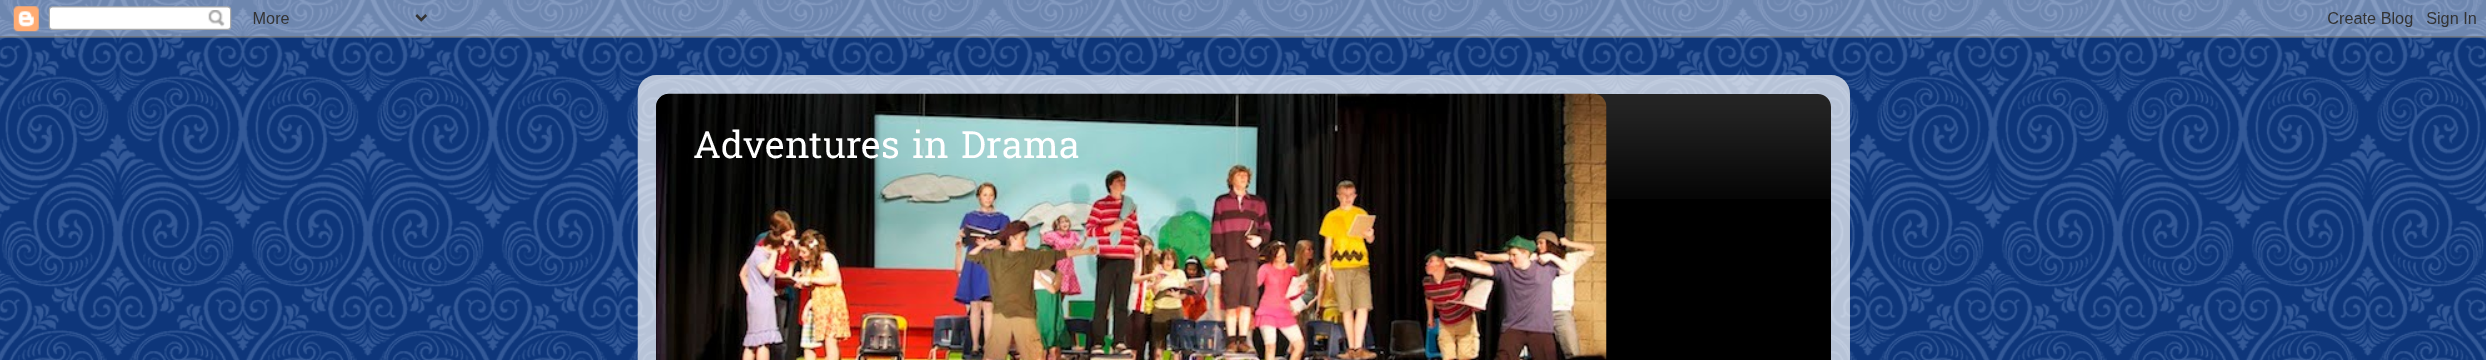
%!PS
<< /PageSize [2486 360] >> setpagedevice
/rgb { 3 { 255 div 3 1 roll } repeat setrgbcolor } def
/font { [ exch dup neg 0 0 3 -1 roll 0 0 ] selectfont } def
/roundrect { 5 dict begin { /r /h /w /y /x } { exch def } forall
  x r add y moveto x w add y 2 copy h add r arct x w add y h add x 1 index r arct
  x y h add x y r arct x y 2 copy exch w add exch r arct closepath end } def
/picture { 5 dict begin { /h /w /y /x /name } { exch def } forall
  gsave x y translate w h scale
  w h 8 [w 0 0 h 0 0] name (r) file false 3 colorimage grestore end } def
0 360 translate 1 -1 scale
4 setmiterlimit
17 68 153 rgb
0 0 2486 360 rectfill
(img/1.rgb) 0 0 2486 360 picture
(img/2.rgb) 0 0 2486 38 picture
(img/3.rgb) 637 75 1213 285 picture
0 0 0 rgb
656 94 1175 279 13 roundrect fill
(img/4.rgb) 656 94 1175 105 picture
(img/5.rgb) 656 93 951 267 picture
/Hanuman-Regular 37.5 font
255 255 255 rgb
693 158 moveto (Adventures in Drama) show
showpage
